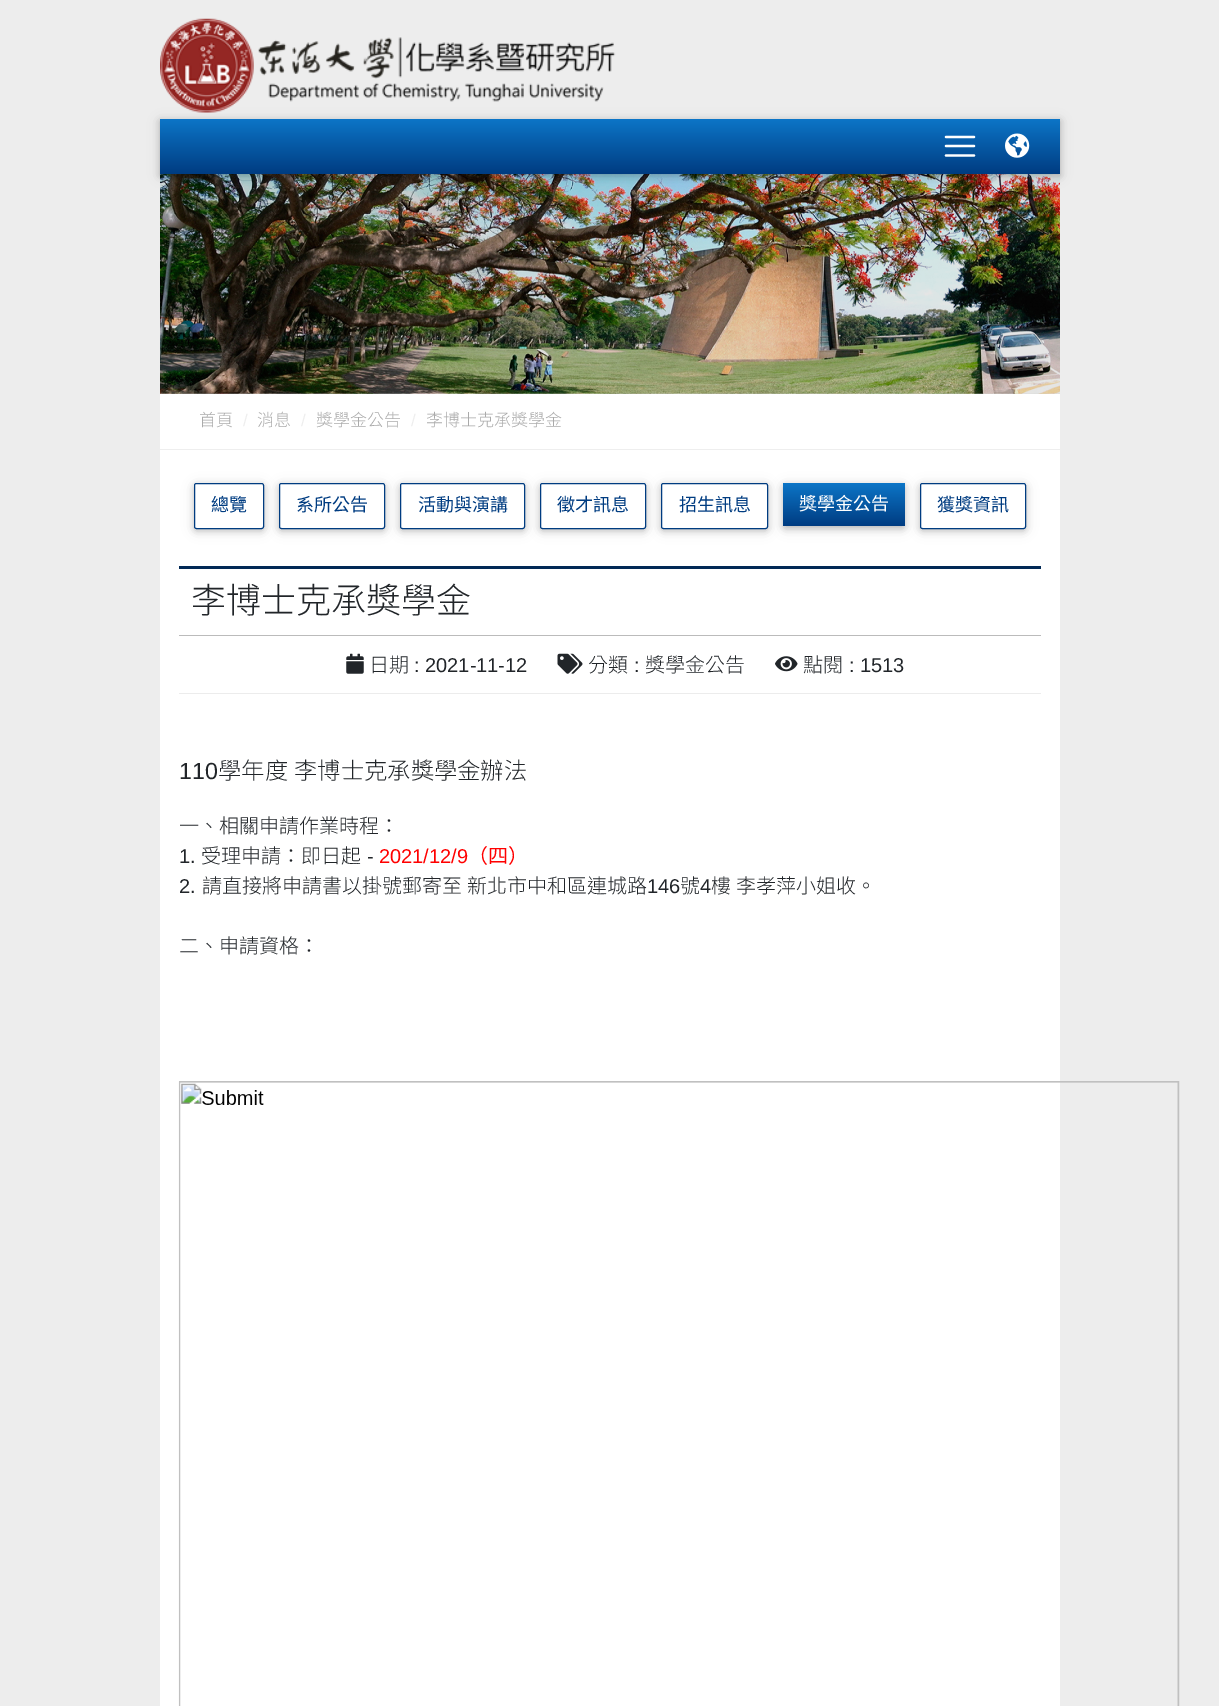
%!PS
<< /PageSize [1219 1706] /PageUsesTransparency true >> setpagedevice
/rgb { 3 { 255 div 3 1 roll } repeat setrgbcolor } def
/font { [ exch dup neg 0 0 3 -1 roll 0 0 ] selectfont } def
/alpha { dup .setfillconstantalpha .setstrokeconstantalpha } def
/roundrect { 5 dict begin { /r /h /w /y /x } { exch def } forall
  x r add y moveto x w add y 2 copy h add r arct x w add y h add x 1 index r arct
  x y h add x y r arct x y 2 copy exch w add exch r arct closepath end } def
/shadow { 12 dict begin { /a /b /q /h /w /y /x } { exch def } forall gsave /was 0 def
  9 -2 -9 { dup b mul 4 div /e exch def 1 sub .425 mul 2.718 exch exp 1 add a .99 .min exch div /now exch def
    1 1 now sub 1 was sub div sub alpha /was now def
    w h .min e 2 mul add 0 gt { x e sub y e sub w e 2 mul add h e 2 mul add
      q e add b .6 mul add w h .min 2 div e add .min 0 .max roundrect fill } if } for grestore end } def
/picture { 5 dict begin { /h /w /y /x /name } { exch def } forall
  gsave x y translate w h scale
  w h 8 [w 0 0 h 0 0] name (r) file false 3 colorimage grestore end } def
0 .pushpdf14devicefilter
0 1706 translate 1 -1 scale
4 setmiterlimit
237 237 237 rgb
0 0 1219 1706 rectfill
(img/1.rgb) 160 18 456 95 picture
(img/3.rgb) 160 174 900 220 picture
0 0 0 rgb
160 121 900 55 0 6 0.12 shadow
160 121 900 55 0 3 0.16 shadow
gsave 160 119 moveto 1060 119 lineto 1060 174 lineto 160 174 lineto closepath clip newpath
<< /ShadingType 2 /ColorSpace /DeviceRGB /Coords [610 119 610 174] /Extend [true true] /Function << /FunctionType 2 /Domain [0 1] /C0 [0.047 0.459 0.78] /C1 [0 0.235 0.506] /N 1 >> >> shfill grestore
255 255 255 rgb
2.3 setlinewidth
1 setlinecap
946 137 moveto 974 137 lineto 946 146 moveto 974 146 lineto 946 155.5 moveto 974 155.5 lineto stroke
(img/2.rgb) 1005 133 25 25 picture
160 394 900 1312 rectfill
238 238 238 rgb
160 449 900 1 rectfill
gsave
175 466 moveto 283 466 lineto 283 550 lineto 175 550 lineto closepath 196.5 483 moveto 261.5 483 lineto 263 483 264 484 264 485.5 curveto 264 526.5 lineto 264 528 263 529 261.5 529 curveto 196.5 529 lineto 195 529 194 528 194 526.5 curveto 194 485.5 lineto 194 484 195 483 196.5 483 curveto closepath eoclip newpath
0 0 0 rgb
194 485 70 46 2.5 6 0.12 shadow
grestore
gsave
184 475 moveto 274 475 lineto 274 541 lineto 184 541 lineto closepath 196.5 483 moveto 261.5 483 lineto 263 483 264 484 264 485.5 curveto 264 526.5 lineto 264 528 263 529 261.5 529 curveto 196.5 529 lineto 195 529 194 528 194 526.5 curveto 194 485.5 lineto 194 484 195 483 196.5 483 curveto closepath eoclip newpath
0 0 0 rgb
194 485 70 46 2.5 3 0.16 shadow
grestore
0 60 129 rgb
1 setlinewidth
0 setlinecap
194.5 483.5 69 45 2 roundrect stroke
gsave
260 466 moveto 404 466 lineto 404 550 lineto 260 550 lineto closepath 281.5 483 moveto 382.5 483 lineto 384 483 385 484 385 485.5 curveto 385 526.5 lineto 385 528 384 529 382.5 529 curveto 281.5 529 lineto 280 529 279 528 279 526.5 curveto 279 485.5 lineto 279 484 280 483 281.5 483 curveto closepath eoclip newpath
0 0 0 rgb
279 485 106 46 2.5 6 0.12 shadow
grestore
gsave
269 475 moveto 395 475 lineto 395 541 lineto 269 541 lineto closepath 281.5 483 moveto 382.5 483 lineto 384 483 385 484 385 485.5 curveto 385 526.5 lineto 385 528 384 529 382.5 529 curveto 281.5 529 lineto 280 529 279 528 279 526.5 curveto 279 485.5 lineto 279 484 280 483 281.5 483 curveto closepath eoclip newpath
0 0 0 rgb
279 485 106 46 2.5 3 0.16 shadow
grestore
279.5 483.5 105 45 2 roundrect stroke
gsave
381 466 moveto 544 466 lineto 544 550 lineto 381 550 lineto closepath 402.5 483 moveto 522.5 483 lineto 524 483 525 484 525 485.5 curveto 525 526.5 lineto 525 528 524 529 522.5 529 curveto 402.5 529 lineto 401 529 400 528 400 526.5 curveto 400 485.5 lineto 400 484 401 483 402.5 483 curveto closepath eoclip newpath
0 0 0 rgb
400 485 125 46 2.5 6 0.12 shadow
grestore
gsave
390 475 moveto 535 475 lineto 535 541 lineto 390 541 lineto closepath 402.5 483 moveto 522.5 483 lineto 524 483 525 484 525 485.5 curveto 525 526.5 lineto 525 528 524 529 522.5 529 curveto 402.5 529 lineto 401 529 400 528 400 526.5 curveto 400 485.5 lineto 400 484 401 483 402.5 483 curveto closepath eoclip newpath
0 0 0 rgb
400 485 125 46 2.5 3 0.16 shadow
grestore
400.5 483.5 124 45 2 roundrect stroke
gsave
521 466 moveto 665 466 lineto 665 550 lineto 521 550 lineto closepath 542.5 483 moveto 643.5 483 lineto 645 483 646 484 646 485.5 curveto 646 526.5 lineto 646 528 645 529 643.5 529 curveto 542.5 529 lineto 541 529 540 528 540 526.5 curveto 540 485.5 lineto 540 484 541 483 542.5 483 curveto closepath eoclip newpath
0 0 0 rgb
540 485 106 46 2.5 6 0.12 shadow
grestore
gsave
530 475 moveto 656 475 lineto 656 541 lineto 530 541 lineto closepath 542.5 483 moveto 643.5 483 lineto 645 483 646 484 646 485.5 curveto 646 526.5 lineto 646 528 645 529 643.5 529 curveto 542.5 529 lineto 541 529 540 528 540 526.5 curveto 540 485.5 lineto 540 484 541 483 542.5 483 curveto closepath eoclip newpath
0 0 0 rgb
540 485 106 46 2.5 3 0.16 shadow
grestore
540.5 483.5 105 45 2 roundrect stroke
gsave
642 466 moveto 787 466 lineto 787 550 lineto 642 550 lineto closepath 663.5 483 moveto 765.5 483 lineto 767 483 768 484 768 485.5 curveto 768 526.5 lineto 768 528 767 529 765.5 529 curveto 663.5 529 lineto 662 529 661 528 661 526.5 curveto 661 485.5 lineto 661 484 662 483 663.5 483 curveto closepath eoclip newpath
0 0 0 rgb
661 485 107 46 2.5 6 0.12 shadow
grestore
gsave
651 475 moveto 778 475 lineto 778 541 lineto 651 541 lineto closepath 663.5 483 moveto 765.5 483 lineto 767 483 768 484 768 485.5 curveto 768 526.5 lineto 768 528 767 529 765.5 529 curveto 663.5 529 lineto 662 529 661 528 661 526.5 curveto 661 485.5 lineto 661 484 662 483 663.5 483 curveto closepath eoclip newpath
0 0 0 rgb
661 485 107 46 2.5 3 0.16 shadow
grestore
661.5 483.5 106 45 2 roundrect stroke
0 0 0 rgb
783 485 122 44 2.5 6 0.12 shadow
783 485 122 44 2.5 3 0.16 shadow
gsave 783 483 122 43 2.5 roundrect clip newpath
<< /ShadingType 2 /ColorSpace /DeviceRGB /Coords [844 483 844 526] /Extend [true true] /Function << /FunctionType 2 /Domain [0 1] /C0 [0.047 0.459 0.78] /C1 [0 0.235 0.506] /N 1 >> >> shfill grestore
gsave
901 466 moveto 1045 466 lineto 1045 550 lineto 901 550 lineto closepath 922.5 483 moveto 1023.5 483 lineto 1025 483 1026 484 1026 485.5 curveto 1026 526.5 lineto 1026 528 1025 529 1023.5 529 curveto 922.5 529 lineto 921 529 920 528 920 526.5 curveto 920 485.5 lineto 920 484 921 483 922.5 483 curveto closepath eoclip newpath
920 485 106 46 2.5 6 0.12 shadow
grestore
gsave
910 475 moveto 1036 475 lineto 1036 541 lineto 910 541 lineto closepath 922.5 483 moveto 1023.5 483 lineto 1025 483 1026 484 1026 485.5 curveto 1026 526.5 lineto 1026 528 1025 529 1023.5 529 curveto 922.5 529 lineto 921 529 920 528 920 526.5 curveto 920 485.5 lineto 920 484 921 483 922.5 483 curveto closepath eoclip newpath
920 485 106 46 2.5 3 0.16 shadow
grestore
0 60 129 rgb
920.5 483.5 105 45 2 roundrect stroke
[
  [179 566 862 3 1 41 86]
  [179 635 862 1 187 187 187]
  [179 693 862 1 236 236 236]
] { aload pop rgb rectfill } forall
(img/4.rgb) 346 653 18 21 picture
(img/5.rgb) 557 653 26 21 picture
(img/6.rgb) 775 656 23 16 picture
(img/7.rgb) 178 1081 1000 625 picture
192 192 192 rgb
179.5 1081.5 999 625 rectstroke
/NotoSansTC-Light 17 font
170 170 170 rgb
199 426 moveto (首頁) show
/LiberationSans-Regular 17 font
238 238 238 rgb
243 426 moveto (/) show
/NotoSansTC-Light 17 font
170 170 170 rgb
257 426 moveto (消息) show
/LiberationSans-Regular 17 font
238 238 238 rgb
301 426 moveto (/) show
/NotoSansTC-Light 17 font
170 170 170 rgb
316 426 moveto (獎學金公告) show
/LiberationSans-Regular 17 font
238 238 238 rgb
411 426 moveto (/) show
/NotoSansTC-Light 17 font
170 170 170 rgb
426 426 moveto (李博士克承獎學金) show
/NotoSansTC-Regular 18 font
0 60 129 rgb
[
  [(總覽) 211 511]
  [(系所公告) 296 511]
  [(活動與演講) 418 511]
  [(徵才訊息) 557 511]
  [(招生訊息) 679 511]
] { aload pop moveto show } forall
255 255 255 rgb
799 510 moveto (獎學金公告) show
0 60 129 rgb
937 511 moveto (獲獎資訊) show
/NotoSansTC-Light 35 font
33 37 41 rgb
191 613 moveto (李博士克承獎學金) show
/NotoSansTC-Light 20 font
369 672 moveto (日期) show
/LiberationSans-Regular 20 font
414 672 moveto (: 2021-11-12) show
/NotoSansTC-Light 20 font
588 672 moveto (分類) show
/LiberationSans-Regular 20 font
634 672 moveto (:) show
/NotoSansTC-Light 20 font
645 672 moveto (獎學金公告) show
803 672 moveto (點閱) show
/LiberationSans-Regular 20 font
849 672 moveto (: 1513) show
/LiberationSans-Regular 23.3 font
179 779 moveto (110) show
/NotoSansTC-Light 23.3 font
218 779 moveto 1 0 32 (學年度 李博士克承獎學金辦法) widthshow
/NotoSansTC-Light 20 font
179 833 moveto (一、相關申請作業時程：) show
/LiberationSans-Regular 20 font
179 863 moveto (1.) show
/NotoSansTC-Light 20 font
201 863 moveto (受理申請：即日起) show
/LiberationSans-Regular 20 font
367 863 moveto (-) show
255 0 0 rgb
379 863 moveto (2021/12/9) show
/NotoSansTC-Regular 20 font
468 863 moveto (（四）) show
/LiberationSans-Regular 20 font
33 37 41 rgb
179 893 moveto (2.) show
/NotoSansTC-Light 20 font
202 893 moveto 1 0 32 (請直接將申請書以掛號郵寄至 新北市中和區連城路) widthshow
/LiberationSans-Regular 20 font
647 893 moveto (146) show
/NotoSansTC-Light 20 font
680 893 moveto (號) show
/LiberationSans-Regular 20 font
700 893 moveto (4) show
/NotoSansTC-Light 20 font
711 893 moveto 1 0 32 (樓 李孝萍小姐收。) widthshow
179 953 moveto (二、申請資格：) show
.poppdf14devicefilter showpage
